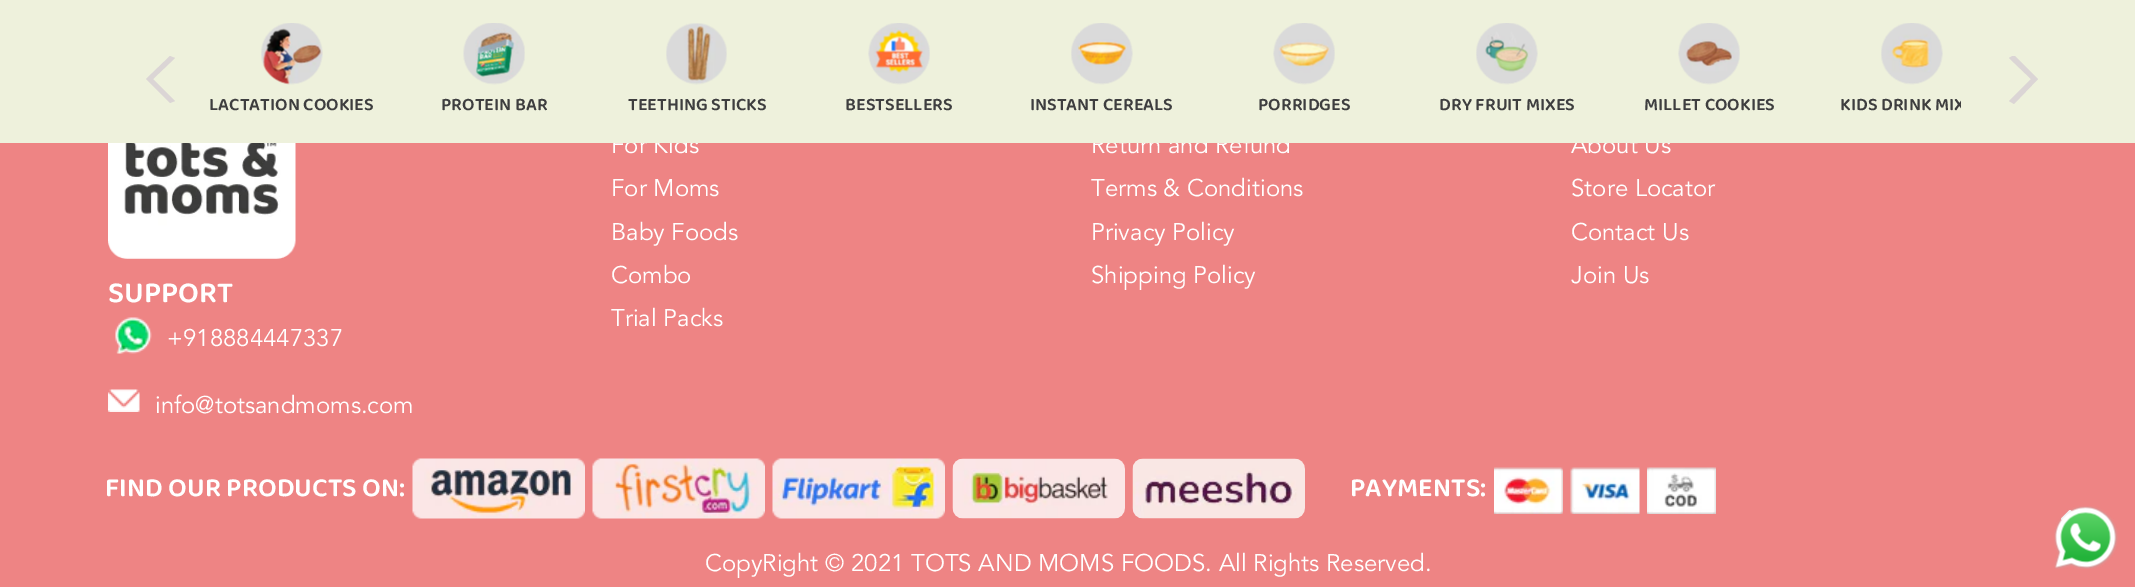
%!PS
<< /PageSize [2135 587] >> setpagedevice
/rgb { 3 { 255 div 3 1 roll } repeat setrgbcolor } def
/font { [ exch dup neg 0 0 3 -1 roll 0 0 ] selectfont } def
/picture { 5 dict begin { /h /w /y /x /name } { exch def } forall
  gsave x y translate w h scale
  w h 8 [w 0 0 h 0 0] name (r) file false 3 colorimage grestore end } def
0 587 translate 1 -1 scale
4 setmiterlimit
238 132 132 rgb
0 0 2135 587 rectfill
(img/10.rgb) 108 143 188 116 picture
(img/11.rgb) 115 317 37 37 picture
(img/12.rgb) 108 389 32 23 picture
(img/13.rgb) 412 458 173 61 picture
(img/14.rgb) 592 458 173 61 picture
(img/15.rgb) 772 458 173 61 picture
(img/16.rgb) 952 458 173 61 picture
(img/17.rgb) 1132 458 173 61 picture
(img/18.rgb) 1494 467 69 47 picture
(img/19.rgb) 1570 467 70 47 picture
(img/20.rgb) 1647 467 69 47 picture
(img/21.rgb) 2061 510 12 11 picture
(img/22.rgb) 2054 506 64 63 picture
/Avenir-Regular 24 font
255 255 255 rgb
[
  [(For Kids) 611 153]
  [(For Moms) 611 196]
  [(Baby Foods) 611 240]
  [(Combo) 611 283]
  [(Trial Packs) 611 326]
  [(Return and Refund) 1091 153]
  [(Terms & Conditions) 1091 196]
  [(Privacy Policy) 1091 240]
  [(Shipping Policy) 1091 283]
  [(About Us) 1571 153]
] { aload pop moveto show } forall
238 241 220 rgb
0 0 2135 143 rectfill
gsave
2009 56 30 48 rectclip
219 213 213 rgb
2009 101 moveto 2031 79 lineto 2009 58 lineto 2014 55 lineto 2038 79 lineto 2014 104 lineto closepath fill
grestore
219 213 213 rgb
175 101 moveto 153 79 lineto 175 58 lineto 170 56 lineto 146 79 lineto 170 103 lineto closepath fill
gsave
191 23 1770 97 rectclip
/Baloo2-SemiBold 18 font
62 62 63 rgb
1840 110 moveto (KIDS DRINK MIX) show
grestore
(img/9.rgb) 1881 23 62 62 picture
/Baloo2-SemiBold 18 font
62 62 63 rgb
1644 110 moveto (MILLET COOKIES) show
(img/8.rgb) 1678 23 62 62 picture
1439 110 moveto (DRY FRUIT MIXES) show
(img/7.rgb) 1476 23 62 62 picture
1258 110 moveto (PORRIDGES) show
(img/6.rgb) 1273 23 62 62 picture
1030 110 moveto (INSTANT CEREALS) show
(img/5.rgb) 1071 23 62 62 picture
845 110 moveto (BESTSELLERS) show
(img/4.rgb) 868 23 62 62 picture
628 110 moveto (TEETHING STICKS) show
(img/3.rgb) 666 23 61 62 picture
441 110 moveto (PROTEIN BAR) show
(img/2.rgb) 463 23 62 62 picture
209 110 moveto (LACTATION COOKIES) show
(img/1.rgb) 261 23 62 62 picture
/Avenir-Regular 24 font
255 255 255 rgb
[
  [(Store Locator) 1571 196]
  [(Contact Us) 1571 240]
  [(Join Us) 1571 283]
] { aload pop moveto show } forall
/Baloo2-SemiBold 30 font
108 302 moveto (SUPPORT) show
/Avenir-Regular 24 font
167 346 moveto (+918884447337) show
155 413 moveto (info@totsandmoms.com) show
/Baloo2-SemiBold 27 font
105 496 moveto (FIND OUR PRODUCTS ON:) show
1350 496 moveto (PAYMENTS:) show
/Avenir-Regular 24 font
705 571 moveto (CopyRight © 2021 TOTS AND MOMS FOODS. All Rights Reserved.) show
showpage
